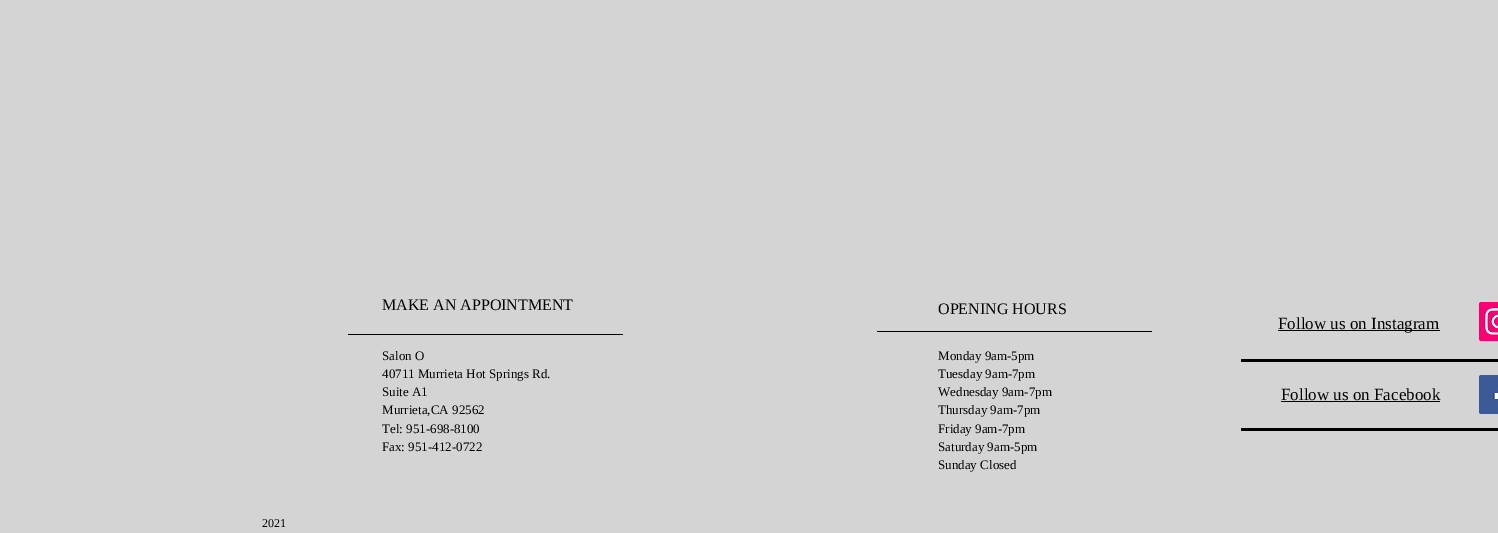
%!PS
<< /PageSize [1498 533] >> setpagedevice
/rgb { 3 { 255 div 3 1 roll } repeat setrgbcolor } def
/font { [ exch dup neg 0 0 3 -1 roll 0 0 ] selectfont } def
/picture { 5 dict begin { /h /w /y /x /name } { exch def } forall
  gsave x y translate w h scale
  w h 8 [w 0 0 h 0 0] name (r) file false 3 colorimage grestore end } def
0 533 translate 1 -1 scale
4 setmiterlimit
213 212 212 rgb
0 0 1498 533 rectfill
(img/1.rgb) 1479 302 19 39 picture
[
  [877 331 275 1 0 0 0]
  [1278 330 162 1 0 0 0]
  [348 334 275 1 0 0 0]
  [1241 359 257 3 0 0 0]
  [1281 401 159 1 0 0 0]
] { aload pop rgb rectfill } forall
(img/2.rgb) 1479 375 19 39 picture
1241 428 257 3 rectfill
/LiberationSerif-Regular 16 font
382 310 moveto (MAKE AN APPOINTMENT) show
938 314 moveto (OPENING HOURS) show
/LiberationSerif-Regular 17 font
1278 329 moveto (Follow us on Instagram) show
/LiberationSerif-Regular 13 font
[
  [(Salon O) 382 360]
  [(40711 Murrieta Hot Springs Rd.) 382 378]
  [(Suite A1) 382 396]
  [(Murrieta,CA 92562) 382 414]
  [(Tel: 951-698-8100) 382 433]
  [(Fax: 951-412-0722) 382 451]
  [(Monday 9am-5pm) 938 360]
  [(Tuesday 9am-7pm) 938 378]
  [(Wednesday 9am-7pm) 938 396]
  [(Thursday 9am-7pm) 938 414]
  [(Friday 9am-7pm) 938 433]
  [(Saturday 9am-5pm) 938 451]
  [(Sunday Closed) 938 469]
] { aload pop moveto show } forall
/LiberationSerif-Regular 17 font
1281 400 moveto (Follow us on Facebook) show
/LiberationSerif-Regular 12 font
262 527 moveto (2021) show
showpage
